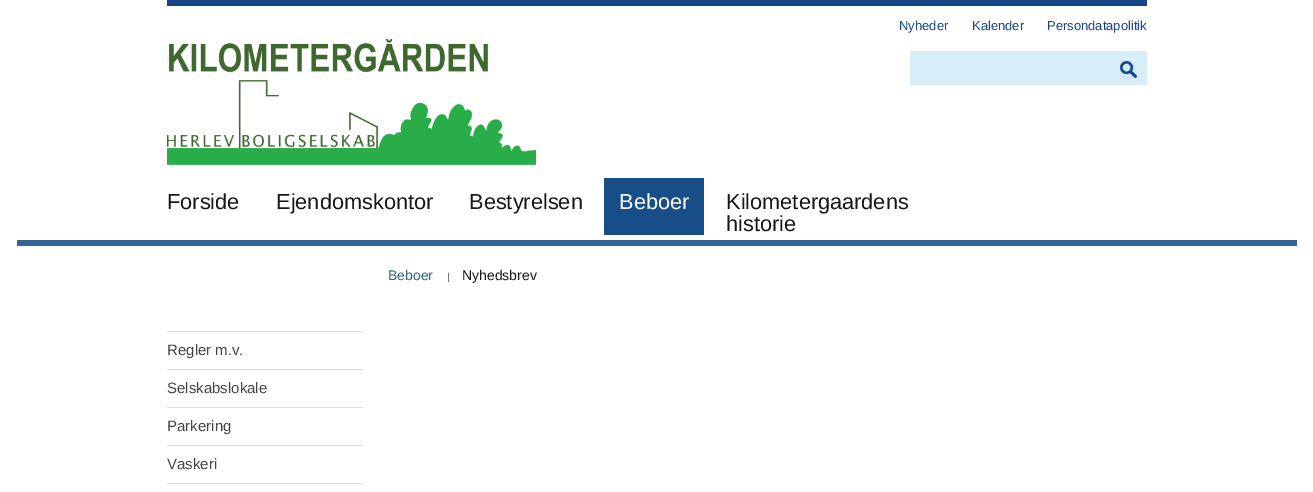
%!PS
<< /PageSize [1313 492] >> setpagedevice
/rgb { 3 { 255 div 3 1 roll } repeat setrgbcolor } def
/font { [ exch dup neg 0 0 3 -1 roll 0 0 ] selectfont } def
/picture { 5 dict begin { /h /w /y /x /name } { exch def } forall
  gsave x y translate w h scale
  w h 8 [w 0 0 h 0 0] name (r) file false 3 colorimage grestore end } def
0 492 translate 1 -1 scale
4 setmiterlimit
255 255 255 rgb
0 0 1313 492 rectfill
23 70 135 rgb
167 0 980 6 rectfill
215 237 248 rgb
910 51 237 34 rectfill
(img/1.rgb) 1120 61 17 17 picture
(img/2.rgb) 167 39 369 126 picture
[
  [604 178 100 57 23 78 135]
  [17 240 1280 6 55 98 151]
  [167 331 196 1 204 226 236]
  [167 369 196 1 204 226 236]
  [167 407 196 1 204 226 236]
  [167 445 196 1 204 226 236]
  [167 483 196 1 204 226 236]
] { aload pop rgb rectfill } forall
/LiberationSans-Regular 13 font
23 70 135 rgb
[
  [(Nyheder) 899 30]
  [(Kalender) 972 30]
  [(Persondatapolitik) 1047 30]
] { aload pop moveto show } forall
/LiberationSans-Regular 21.75 font
23 23 23 rgb
[
  [(Forside) 167 209]
  [(Ejendomskontor) 276 209]
  [(Bestyrelsen) 469 209]
] { aload pop moveto show } forall
255 255 255 rgb
619 209 moveto (Beboer) show
23 23 23 rgb
726 209 moveto (Kilometergaardens) show
726 231 moveto (historie) show
/LiberationSans-Regular 14 font
51 101 125 rgb
388 280 moveto (Beboer) show
/LiberationSans-Regular 10 font
69 69 69 rgb
447 280 moveto (|) show
/LiberationSans-Regular 14 font
23 23 23 rgb
462 280 moveto (Nyhedsbrev) show
/LiberationSans-Regular 15 font
69 69 69 rgb
[
  [(Regler m.v.) 167 355]
  [(Selskabslokale) 167 393]
  [(Parkering) 167 431]
  [(Vaskeri) 167 469]
] { aload pop moveto show } forall
showpage
